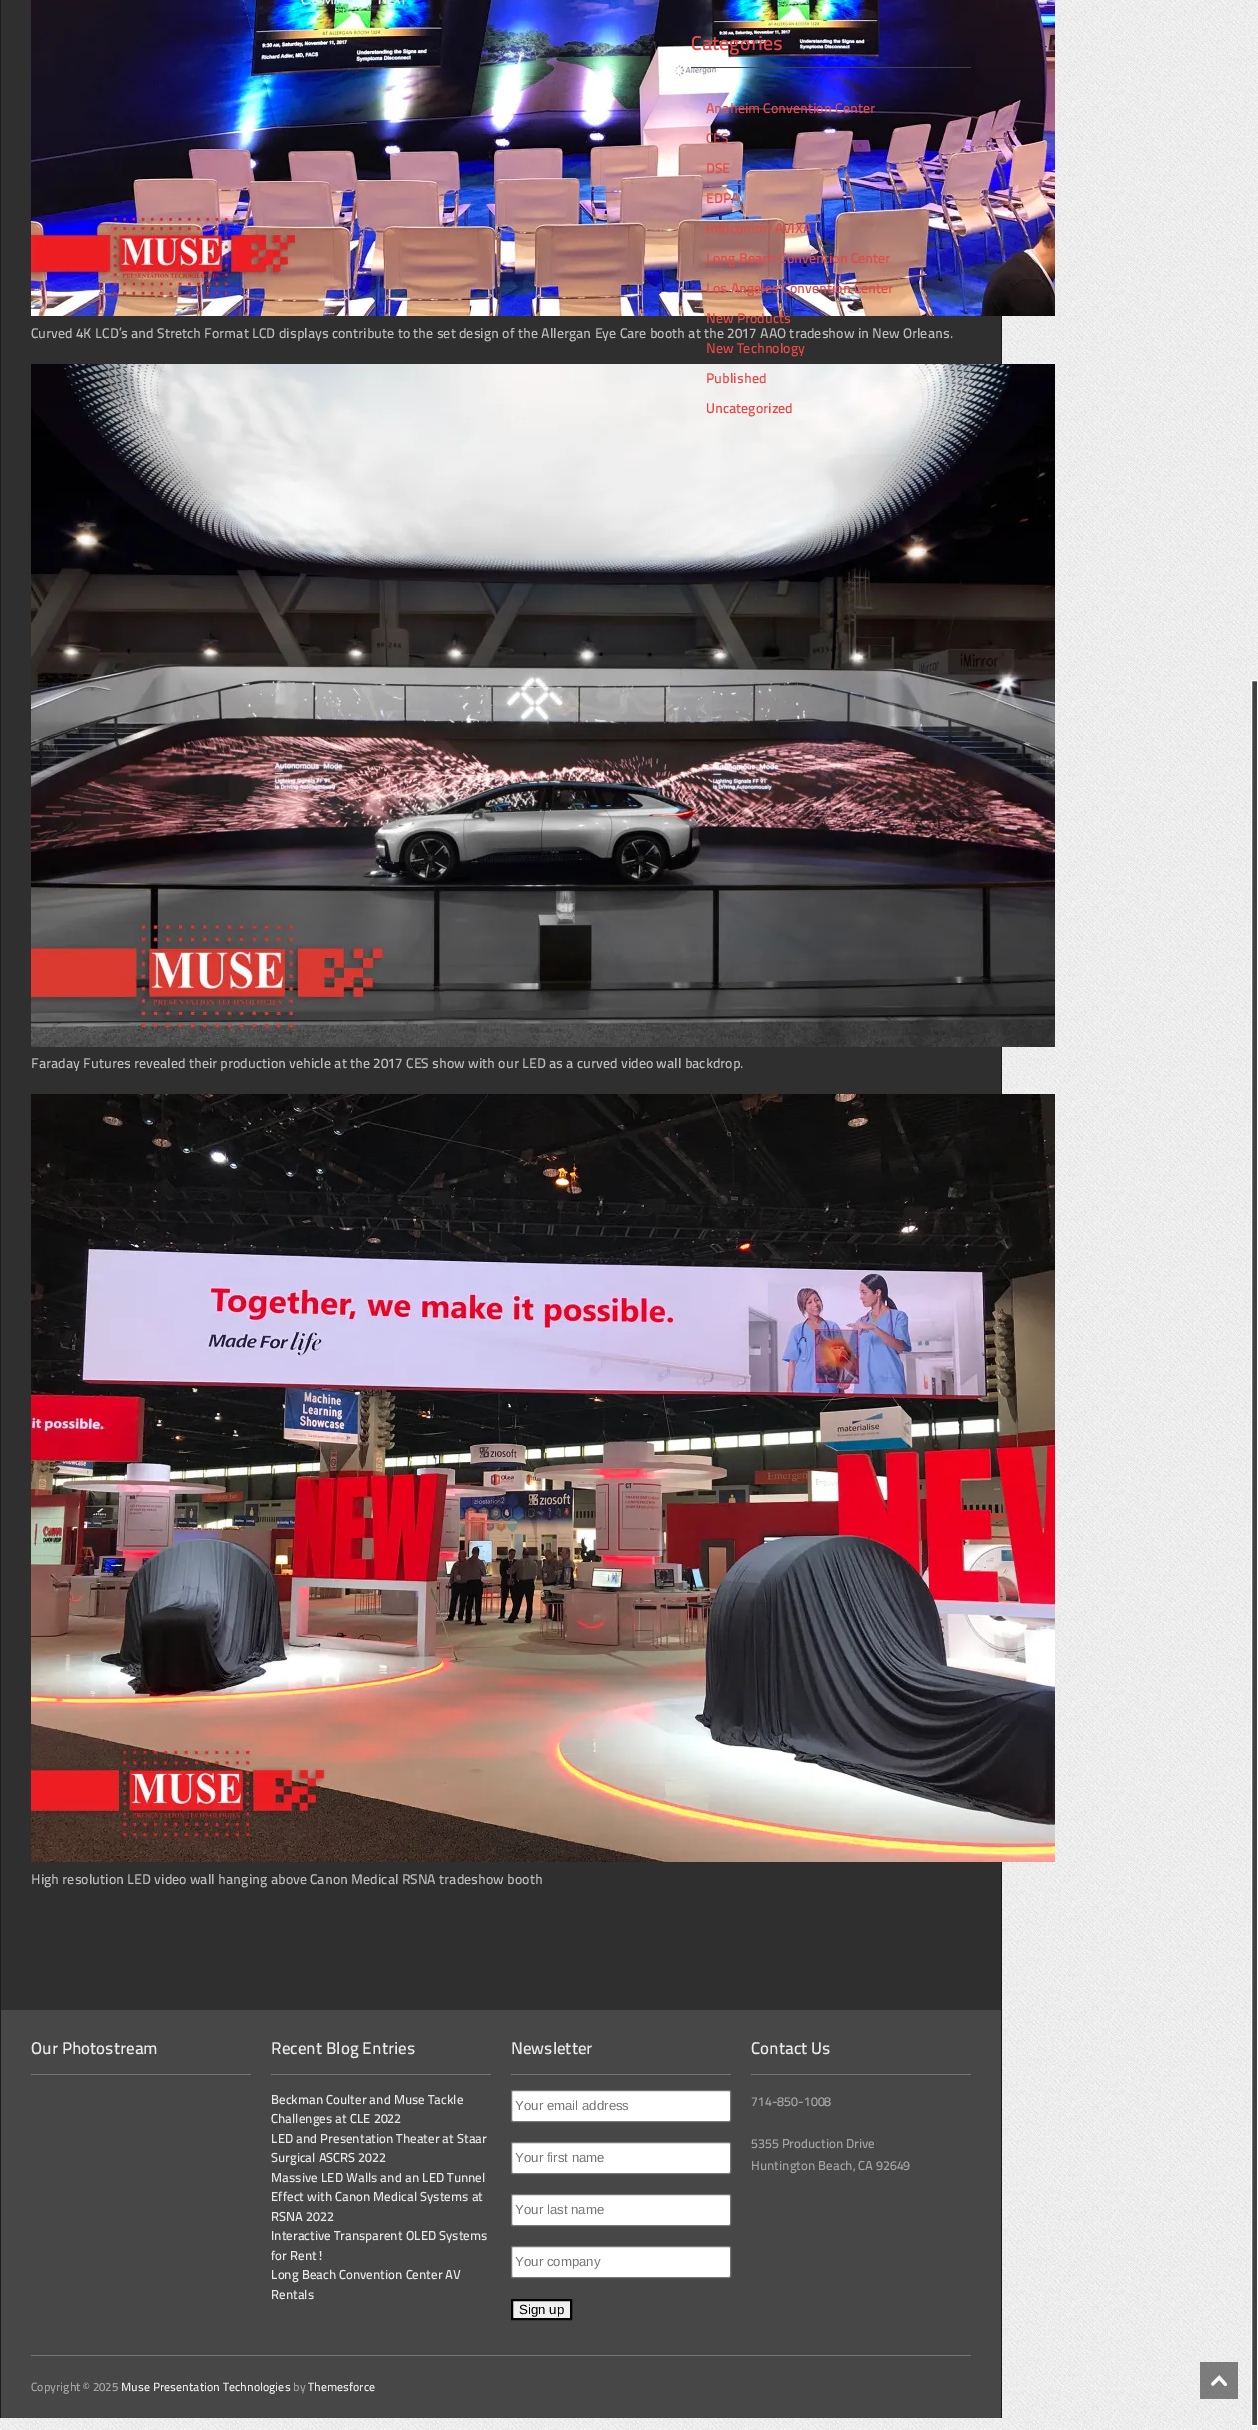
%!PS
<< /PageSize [1258 2430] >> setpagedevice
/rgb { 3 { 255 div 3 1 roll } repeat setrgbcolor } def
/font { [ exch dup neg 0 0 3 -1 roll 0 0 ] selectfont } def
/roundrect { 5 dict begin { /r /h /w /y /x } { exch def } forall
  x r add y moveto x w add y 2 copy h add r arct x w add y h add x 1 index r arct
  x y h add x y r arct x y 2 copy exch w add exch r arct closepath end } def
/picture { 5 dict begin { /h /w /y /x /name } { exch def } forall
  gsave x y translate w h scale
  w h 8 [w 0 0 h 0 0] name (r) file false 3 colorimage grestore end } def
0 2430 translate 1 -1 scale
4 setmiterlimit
255 255 255 rgb
0 0 1258 2430 rectfill
(img/1.rgb) 0 0 1258 2430 picture
[
  [1 0 1000 2010 47 47 47]
  [1001 316 1 2102 28 28 28]
  [0 0 1 2418 28 28 28]
] { aload pop rgb rectfill } forall
(img/2.rgb) 31 0 1024 316 picture
66 66 66 rgb
691 67 280 1 rectfill
(img/3.rgb) 31 364 1024 683 picture
(img/4.rgb) 31 1094 1024 768 picture
[
  [1 2010 1000 408 71 71 71]
  [31 2074 220 1 116 116 116]
  [271 2074 220 1 116 116 116]
  [511 2074 220 1 116 116 116]
] { aload pop rgb rectfill } forall
255 255 255 rgb
511.5 2090.5 219 31 1.5 roundrect gsave fill grestore
118 118 118 rgb
stroke
255 255 255 rgb
511.5 2142.5 219 31 1.5 roundrect gsave fill grestore
118 118 118 rgb
stroke
255 255 255 rgb
511.5 2194.5 219 31 1.5 roundrect gsave fill grestore
118 118 118 rgb
stroke
255 255 255 rgb
511.5 2246.5 219 31 1.5 roundrect gsave fill grestore
118 118 118 rgb
stroke
239 239 239 rgb
512 2300 moveto 571 2300 lineto 571 2319 lineto 512 2319 lineto closepath gsave fill grestore
0 0 0 rgb
2 setlinewidth
stroke
116 116 116 rgb
751 2074 220 1 rectfill
31 2355 940 1 rectfill
(img/5.rgb) 1200 2362 38 37 picture
66 66 66 rgb
1251.5 680.5 moveto 1257.5 680.5 lineto 1257.5 2425.5 lineto 1251.5 2425.5 lineto closepath gsave fill grestore
255 255 255 rgb
1 setlinewidth
stroke
/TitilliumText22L-Medium 20 font
230 73 70 rgb
691 50 moveto (Categories) show
/TitilliumText22L-Medium 14 font
[
  [(Anaheim Convention Center) 706 113]
  [(CES) 706 143]
  [(DSE) 706 173]
  [(EDPA) 706 203]
  [(Infocomm/AVIXA) 706 233]
  [(Long Beach Convention Center) 706 263]
  [(Los Angeles Convention Center) 706 293]
  [(New Products) 706 323]
  [(New Technology) 706 353]
  [(Published) 706 383]
  [(Uncategorized) 706 413]
] { aload pop moveto show } forall
187 187 187 rgb
[
  [(Curved 4K LCD’s and Stretch Format LCD displays contribute to the set design of the Allergan Eye Care booth at the 2017 AAO tradeshow in New Orleans.) 31 338]
  [(Faraday Futures revealed their production vehicle at the 2017 CES show with our LED as a curved video wall backdrop.) 31 1068]
  [(High resolution LED video wall hanging above Canon Medical RSNA tradeshow booth) 31 1884]
] { aload pop moveto show } forall
/TitilliumText22L-Medium 17 font
232 232 232 rgb
31 2054 moveto (Our Photostream) show
271 2054 moveto (Recent Blog Entries) show
/TitilliumText22L-Medium 13 font
[
  [(Beckman Coulter and Muse Tackle) 271 2104]
  [(Challenges at CLE 2022) 271 2123]
  [(LED and Presentation Theater at Staar) 271 2143]
  [(Surgical ASCRS 2022) 271 2162]
  [(Massive LED Walls and an LED Tunnel) 271 2182]
  [(Effect with Canon Medical Systems at) 271 2201]
  [(RSNA 2022) 271 2221]
  [(Interactive Transparent OLED Systems) 271 2240]
  [(for Rent!) 271 2260]
  [(Long Beach Convention Center AV) 271 2279]
  [(Rentals) 271 2299]
] { aload pop moveto show } forall
/TitilliumText22L-Medium 17 font
511 2054 moveto (Newsletter) show
/LiberationSans-Regular 13.25 font
117 117 117 rgb
[
  [(Your email address) 515 2110]
  [(Your first name) 515 2162]
  [(Your last name) 515 2214]
  [(Your company) 515 2266]
] { aload pop moveto show } forall
0 0 0 rgb
519 2314 moveto (Sign up) show
/TitilliumText22L-Medium 17 font
232 232 232 rgb
751 2054 moveto (Contact Us) show
/TitilliumText22L-Medium 13 font
164 161 161 rgb
[
  [(714-850-1008) 751 2106]
  [(5355 Production Drive) 751 2148]
  [(Huntington Beach, CA 92649) 751 2170]
] { aload pop moveto show } forall
/TitilliumText22L-Medium 12 font
31 2391 moveto (Copyright © 2025) show
232 232 232 rgb
121 2391 moveto (Muse Presentation Technologies) show
164 161 161 rgb
293 2391 moveto (by) show
232 232 232 rgb
308 2391 moveto (Themesforce) show
showpage
